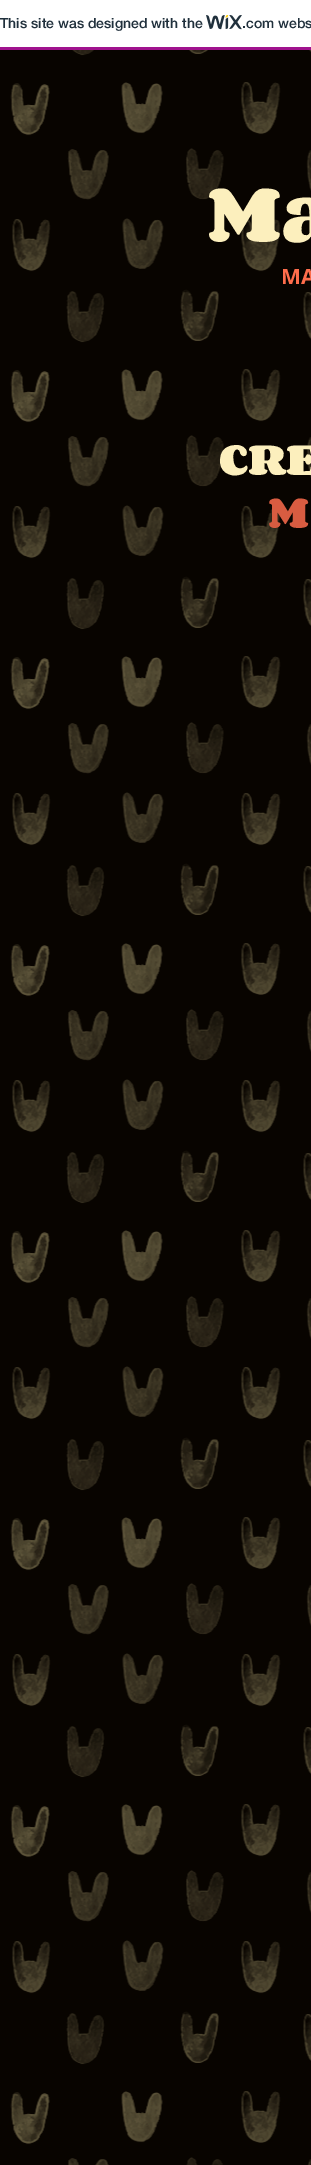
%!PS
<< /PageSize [311 2165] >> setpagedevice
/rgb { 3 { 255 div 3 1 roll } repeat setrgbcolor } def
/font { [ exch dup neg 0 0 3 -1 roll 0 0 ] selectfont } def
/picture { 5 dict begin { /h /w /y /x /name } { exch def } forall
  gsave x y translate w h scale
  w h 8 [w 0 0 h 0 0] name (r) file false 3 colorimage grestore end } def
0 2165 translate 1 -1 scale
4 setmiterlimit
255 255 255 rgb
0 0 311 2165 rectfill
160 19 142 rgb
0 47 311 3 rectfill
(img/1.rgb) 206 15 36 15 picture
8 4 0 rgb
0 50 311 2115 rectfill
(img/2.rgb) 10 50 301 2115 picture
/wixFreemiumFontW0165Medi-Medium 14 font
32 48 60 rgb
0 28 moveto (This site was designed with the) show
242 28 moveto (.com webs) show
/Corben-Bold 69 font
252 239 189 rgb
207 242 moveto (Ma) show
/OpenSans-Bold 21 font
255 109 76 rgb
281 284 moveto (MA) show
/Corben-Bold 38 font
252 239 189 rgb
219 475 moveto (CRE) show
216 92 65 rgb
268 528 moveto (M) show
showpage
